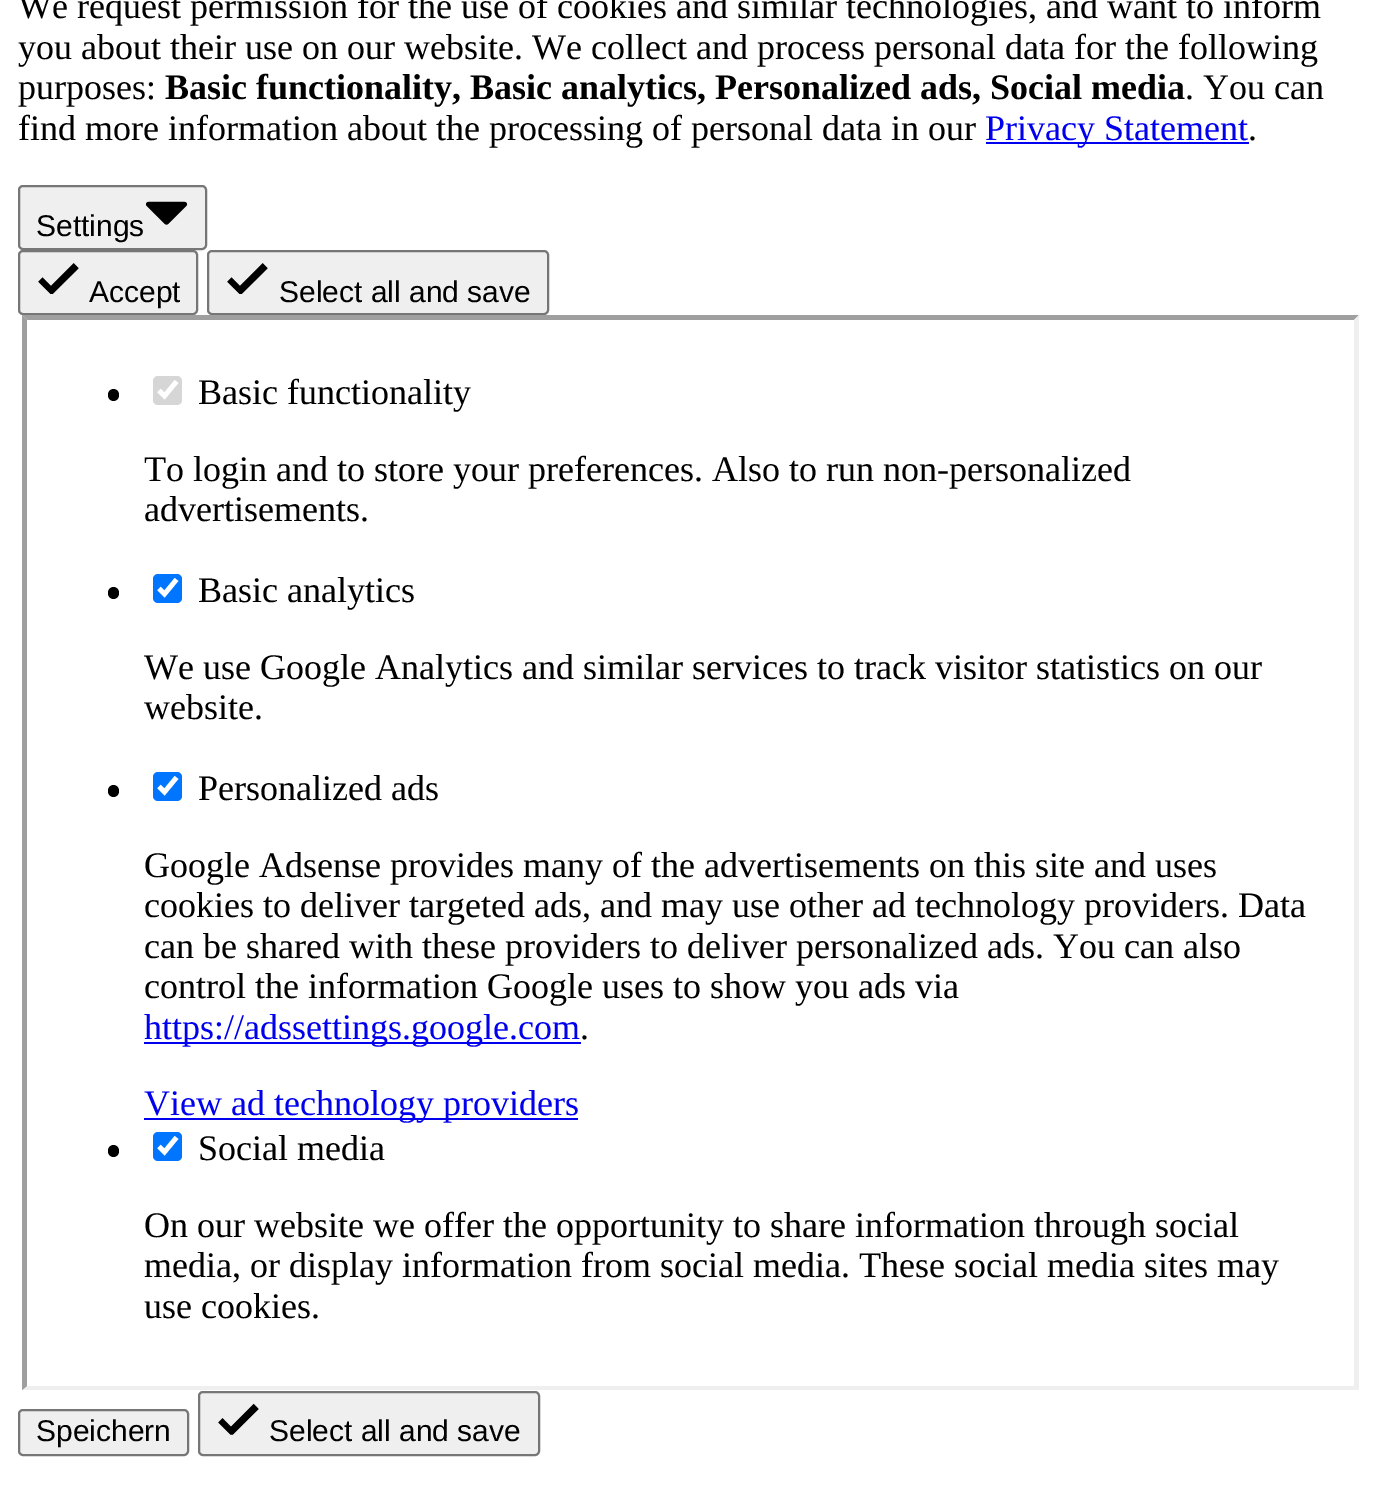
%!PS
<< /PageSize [1381 1487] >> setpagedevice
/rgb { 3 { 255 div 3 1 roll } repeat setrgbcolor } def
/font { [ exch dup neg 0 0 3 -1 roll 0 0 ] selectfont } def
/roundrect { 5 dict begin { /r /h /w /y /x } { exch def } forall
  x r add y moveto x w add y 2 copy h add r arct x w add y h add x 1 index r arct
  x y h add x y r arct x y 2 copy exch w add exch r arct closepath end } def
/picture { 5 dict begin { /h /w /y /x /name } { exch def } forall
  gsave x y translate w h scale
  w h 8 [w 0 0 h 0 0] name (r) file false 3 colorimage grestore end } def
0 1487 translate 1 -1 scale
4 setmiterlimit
255 255 255 rgb
0 0 1381 1487 rectfill
0 0 238 rgb
986 142 263 2 rectfill
239 239 239 rgb
19 186 187 63 4 roundrect gsave fill grestore
118 118 118 rgb
2 setlinewidth
stroke
(img/1.rgb) 145 201 43 24 picture
239 239 239 rgb
19 251 178 63 4 roundrect gsave fill grestore
118 118 118 rgb
stroke
(img/2.rgb) 38 263 41 31 picture
239 239 239 rgb
208 251 340 63 4 roundrect gsave fill grestore
118 118 118 rgb
stroke
(img/3.rgb) 227 263 41 31 picture
159 159 159 rgb
22 315 moveto 1359 315 lineto 1354 320 lineto 27 320 lineto closepath fill
239 239 239 rgb
1359 315 moveto 1359 1390 lineto 1354 1386 lineto 1354 320 lineto closepath fill
1359 1390 moveto 22 1390 lineto 27 1386 lineto 1354 1386 lineto closepath fill
159 159 159 rgb
22 1390 moveto 22 315 lineto 27 320 lineto 27 1386 lineto closepath fill
0 0 0 rgb
108 389 11 12 5.5 roundrect fill
214 214 214 rgb
153 376 29 29 5 roundrect fill
255 255 255 rgb
4.7 setlinewidth
159 390.5 moveto 164.5 396 lineto 176.5 381.5 lineto stroke
0 0 0 rgb
108 587 11 12 5.5 roundrect fill
0 117 255 rgb
153 574 29 29 5 roundrect fill
255 255 255 rgb
159 588.5 moveto 164.5 594 lineto 176.5 579.5 lineto stroke
0 0 0 rgb
108 785 11 12 5.5 roundrect fill
0 117 255 rgb
153 772 29 29 5 roundrect fill
255 255 255 rgb
159 786.5 moveto 164.5 792 lineto 176.5 777.5 lineto stroke
0 0 238 rgb
144 1042 437 2 rectfill
144 1118 434 2 rectfill
0 0 0 rgb
108 1145 11 12 5.5 roundrect fill
0 117 255 rgb
153 1132 29 29 5 roundrect fill
255 255 255 rgb
159 1146.5 moveto 164.5 1152 lineto 176.5 1137.5 lineto stroke
239 239 239 rgb
19 1410 169 45 4 roundrect gsave fill grestore
118 118 118 rgb
2 setlinewidth
stroke
239 239 239 rgb
199 1392 340 63 4 roundrect gsave fill grestore
118 118 118 rgb
stroke
(img/4.rgb) 218 1403 41 32 picture
/LiberationSerif-Regular 36 font
0 0 0 rgb
[
  [(We request permission for the use of cookies and similar technologies, and want to inform) 18 18]
  [(you about their use on our website. We collect and process personal data for the following) 18 59]
  [(purposes:) 18 99]
] { aload pop moveto show } forall
/LiberationSerif-Bold 36 font
165 99 moveto (Basic functionality, Basic analytics, Personalized ads, Social media) show
/LiberationSerif-Regular 36 font
1185 99 moveto (. You can) show
18 140 moveto (find more information about the processing of personal data in our) show
0 0 238 rgb
985 140 moveto (Privacy Statement) show
0 0 0 rgb
1248 140 moveto (.) show
/LiberationSans-Regular 30 font
[
  [(Settings) 36 236]
  [(Accept) 89 302]
  [(Select all and save) 279 302]
] { aload pop moveto show } forall
/LiberationSerif-Regular 36 font
[
  [(Basic functionality) 198 404]
  [(To login and to store your preferences. Also to run non-personalized) 144 481]
  [(advertisements.) 144 521]
  [(Basic analytics) 198 602]
  [(We use Google Analytics and similar services to track visitor statistics on our) 144 679]
  [(website.) 144 719]
  [(Personalized ads) 198 800]
  [(Google Adsense provides many of the advertisements on this site and uses) 144 877]
  [(cookies to deliver targeted ads, and may use other ad technology providers. Data) 144 917]
  [(can be shared with these providers to deliver personalized ads. You can also) 144 958]
  [(control the information Google uses to show you ads via) 144 998]
] { aload pop moveto show } forall
0 0 238 rgb
144 1039 moveto (https://adssettings.google.com) show
0 0 0 rgb
580 1039 moveto (.) show
0 0 238 rgb
144 1115 moveto (View ad technology providers) show
0 0 0 rgb
[
  [(Social media) 198 1160]
  [(On our website we offer the opportunity to share information through social) 144 1237]
  [(media, or display information from social media. These social media sites may) 144 1277]
  [(use cookies.) 144 1318]
] { aload pop moveto show } forall
/LiberationSans-Regular 30 font
36 1441 moveto (Speichern) show
269 1441 moveto (Select all and save) show
showpage
